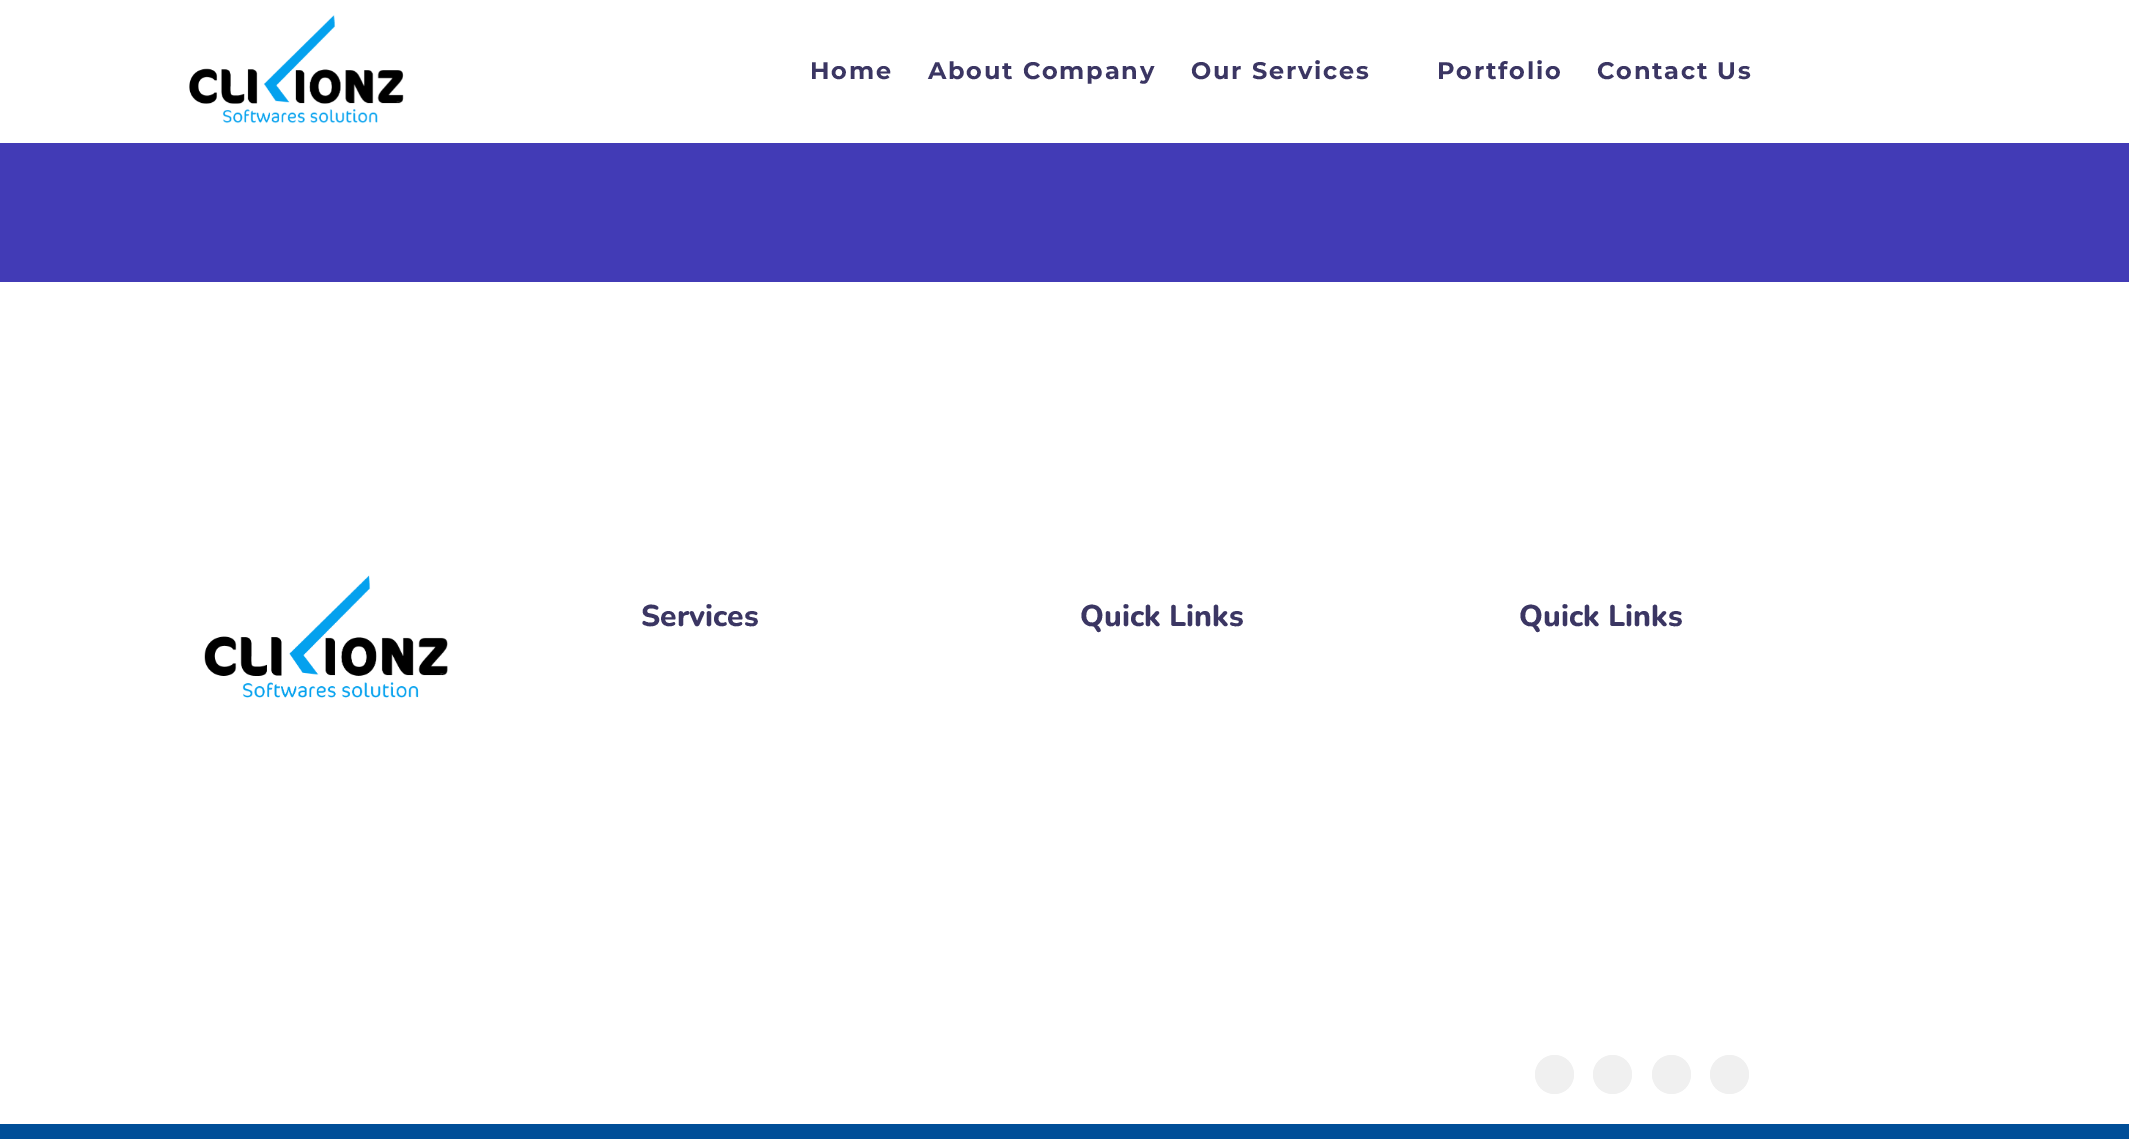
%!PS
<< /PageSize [2129 1139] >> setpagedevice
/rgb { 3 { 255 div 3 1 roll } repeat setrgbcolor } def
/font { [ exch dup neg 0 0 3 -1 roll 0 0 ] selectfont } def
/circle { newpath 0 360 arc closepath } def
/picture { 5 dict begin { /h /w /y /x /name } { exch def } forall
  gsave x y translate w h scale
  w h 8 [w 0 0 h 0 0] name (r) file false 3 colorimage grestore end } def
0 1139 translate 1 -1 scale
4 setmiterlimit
255 255 255 rgb
0 0 2129 1139 rectfill
(img/1.rgb) 189 15 215 109 picture
66 59 182 rgb
0 143 2129 139 rectfill
(img/2.rgb) 204 575 244 123 picture
240 240 240 rgb
1554.5 1074.5 19.5 circle fill
1612.5 1074.5 19.5 circle fill
1671.5 1074.5 19.5 circle fill
1729.5 1074.5 19.5 circle fill
0 78 152 rgb
0 1124 2129 15 rectfill
/Montserrat-Bold 24 font
59 54 99 rgb
810 79 moveto 1.75 0 (Home) ashow
928 79 moveto 1.75 0 (About Company) ashow
1191 79 moveto 1.75 0 (Our Services) ashow
1437 79 moveto 1.75 0 (Portfolio) ashow
1597 79 moveto 1.75 0 (Contact Us) ashow
/Nunito-ExtraBold 30 font
[
  [(Services) 641 626]
  [(Quick Links) 1080 626]
  [(Quick Links) 1519 626]
] { aload pop moveto show } forall
showpage
